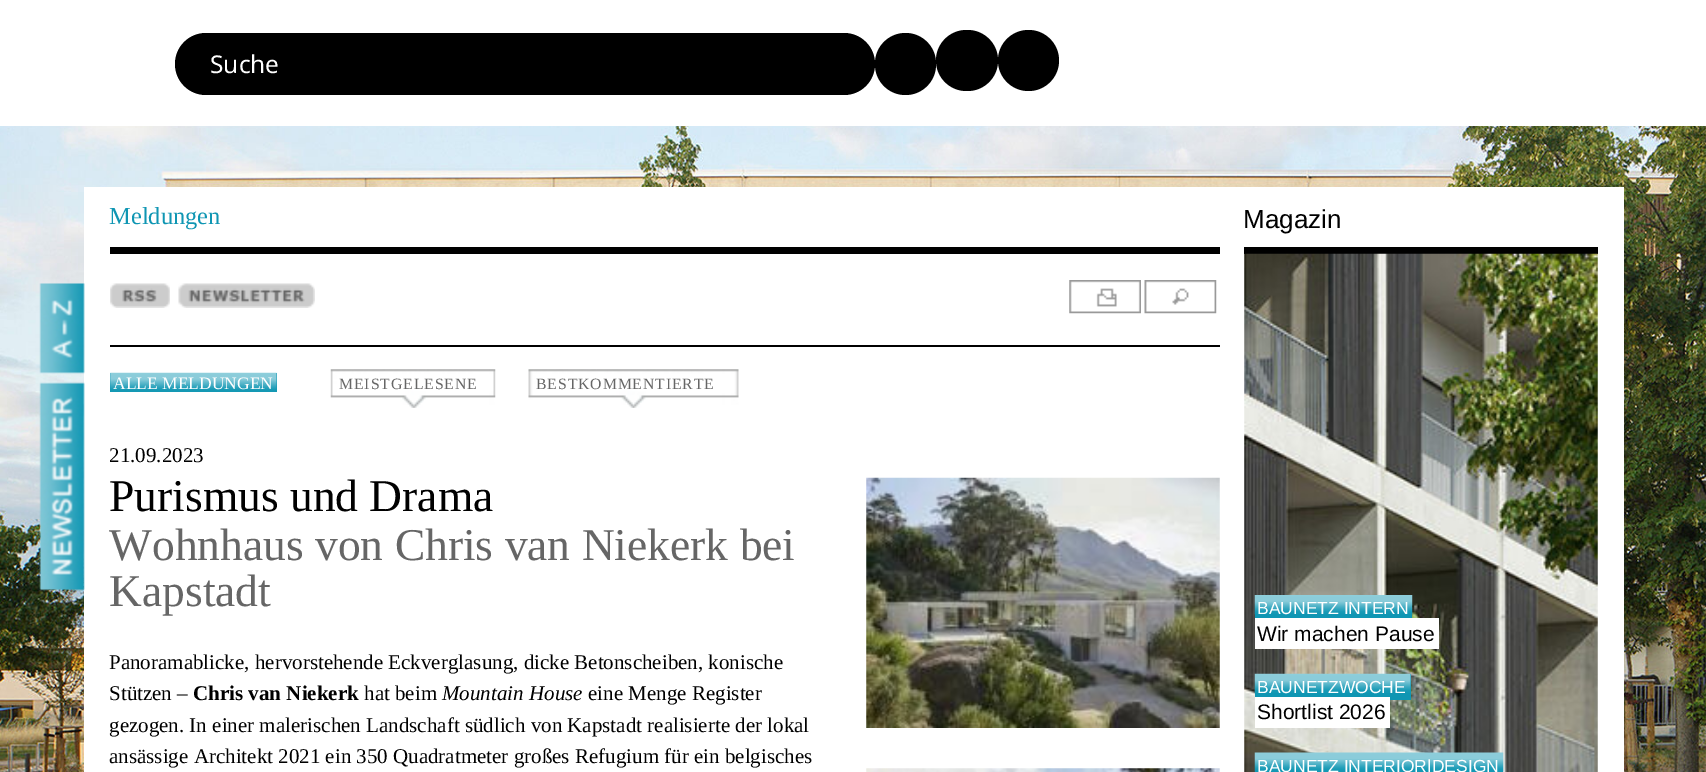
%!PS
<< /PageSize [1706 772] >> setpagedevice
/rgb { 3 { 255 div 3 1 roll } repeat setrgbcolor } def
/font { [ exch dup neg 0 0 3 -1 roll 0 0 ] selectfont } def
/circle { newpath 0 360 arc closepath } def
/roundrect { 5 dict begin { /r /h /w /y /x } { exch def } forall
  x r add y moveto x w add y 2 copy h add r arct x w add y h add x 1 index r arct
  x y h add x y r arct x y 2 copy exch w add exch r arct closepath end } def
/picture { 5 dict begin { /h /w /y /x /name } { exch def } forall
  gsave x y translate w h scale
  w h 8 [w 0 0 h 0 0] name (r) file false 3 colorimage grestore end } def
0 772 translate 1 -1 scale
4 setmiterlimit
255 255 255 rgb
0 0 1706 772 rectfill
(img/1.rgb) 0 126 1706 646 picture
0 0 0 rgb
175 33 700 62 31 roundrect fill
875 33 61 62 30.5 roundrect fill
936 30 62 61 30.5 roundrect fill
1028.5 60.5 30.5 circle fill
[
  [84 187 1540 585 255 255 255]
  [110 247 1110 7 0 0 0]
  [1244 247 354 7 0 0 0]
] { aload pop rgb rectfill } forall
(img/2.rgb) 39 283 46 91 picture
(img/3.rgb) 39 382 46 209 picture
110 345 1110 2 rectfill
(img/4.rgb) 110 283 60 25 picture
(img/5.rgb) 178 283 137 25 picture
(img/6.rgb) 1069 280 72 34 picture
(img/7.rgb) 1144 280 73 34 picture
15 150 179 rgb
110 373 167 19 rectfill
(img/8.rgb) 110 372 167 20 picture
(img/9.rgb) 330 369 166 39 picture
(img/10.rgb) 528 369 211 39 picture
(img/11.rgb) 866 477 354 251 picture
(img/12.rgb) 866 768 354 4 picture
(img/13.rgb) 1244 253 354 519 picture
1255 614 157 4 rectfill
(img/14.rgb) 1254 595 159 20 picture
255 255 255 rgb
1255 618 184 31 rectfill
15 150 179 rgb
1255 674 156 26 rectfill
(img/15.rgb) 1254 673 157 20 picture
255 255 255 rgb
1255 697 135 31 rectfill
(img/16.rgb) 1254 752 250 20 picture
/NotoSans-Regular 24.5 font
210 73 moveto (Suche) show
/LiberationSerif-Regular 24.5 font
15 150 179 rgb
109 224 moveto (Meldungen) show
/LiberationSans-Regular 26 font
0 0 0 rgb
1243 228 moveto (Magazin) show
/LiberationSerif-Regular 17.5 font
255 255 255 rgb
113 389 moveto (ALLE MELDUNGEN) show
/LiberationSerif-Regular 15.75 font
102 102 102 rgb
339 389 moveto 0.9 0 (MEISTGELESENE) ashow
536 389 moveto 0.9 0 (BESTKOMMENTIERTE) ashow
/LiberationSerif-Regular 21 font
0 0 0 rgb
109 462 moveto (21.09.2023) show
/LiberationSerif-Regular 45.5 font
109 511 moveto (Purismus und Drama) show
102 102 102 rgb
109 560 moveto (Wohnhaus von Chris van Niekerk bei) show
109 606 moveto (Kapstadt) show
/LiberationSerif-Regular 21 font
0 0 0 rgb
109 669 moveto (Panoramablicke, hervorstehende Eckverglasung, dicke Betonscheiben, konische) show
109 700 moveto (Stützen –) show
/LiberationSerif-Bold 21 font
193 700 moveto (Chris van Niekerk) show
/LiberationSerif-Regular 21 font
364 700 moveto (hat beim) show
/LiberationSerif-Italic 21 font
442 700 moveto (Mountain House) show
/LiberationSerif-Regular 21 font
[
  [(eine Menge Register) 588 700]
  [(gezogen. In einer malerischen Landschaft südlich von Kapstadt realisierte der lokal) 109 732]
  [(ansässige Architekt 2021 ein 350 Quadratmeter großes Refugium für ein belgisches) 109 763]
] { aload pop moveto show } forall
/LiberationSans-Regular 17.5 font
255 255 255 rgb
1257 614 moveto (BAUNETZ INTERN) show
/LiberationSans-Regular 21 font
0 0 0 rgb
1257 641 moveto (Wir machen Pause) show
/LiberationSans-Regular 17.5 font
255 255 255 rgb
1257 693 moveto (BAUNETZWOCHE) show
/LiberationSans-Regular 21 font
0 0 0 rgb
1257 719 moveto (Shortlist 2026) show
/LiberationSans-Regular 17.5 font
255 255 255 rgb
1257 772 moveto (BAUNETZ INTERIOR|DESIGN) show
showpage
